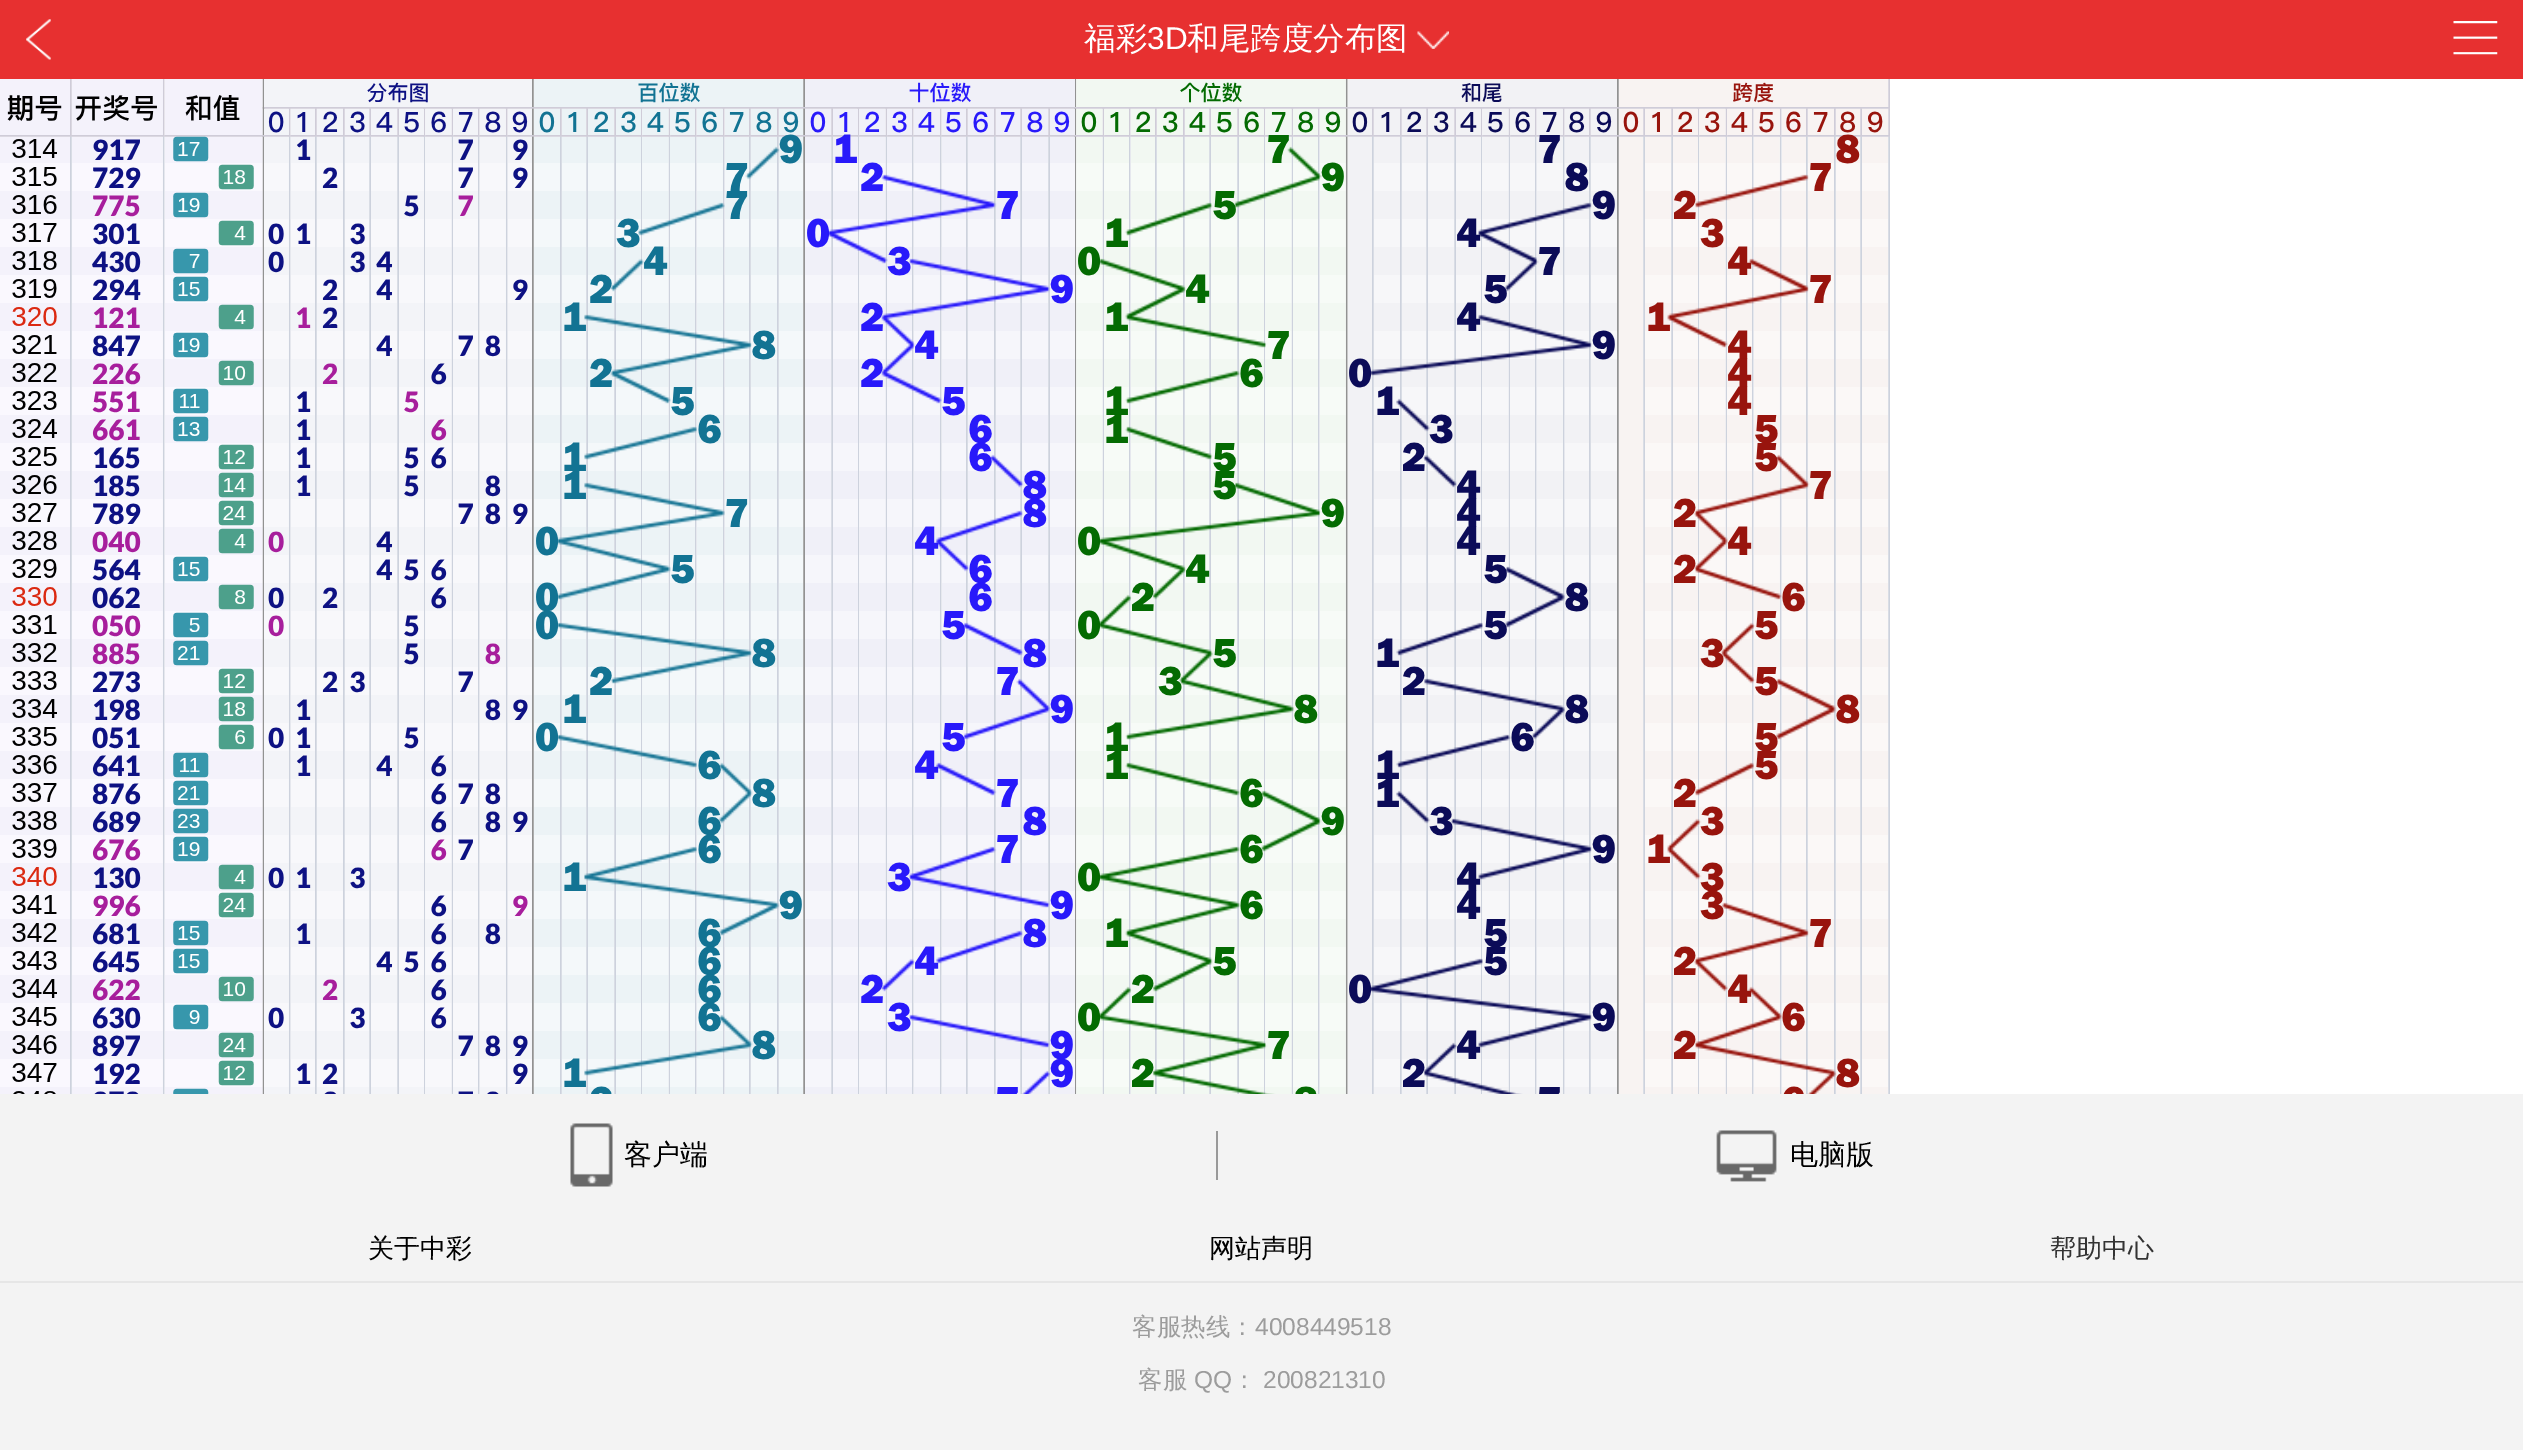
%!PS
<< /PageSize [2523 1450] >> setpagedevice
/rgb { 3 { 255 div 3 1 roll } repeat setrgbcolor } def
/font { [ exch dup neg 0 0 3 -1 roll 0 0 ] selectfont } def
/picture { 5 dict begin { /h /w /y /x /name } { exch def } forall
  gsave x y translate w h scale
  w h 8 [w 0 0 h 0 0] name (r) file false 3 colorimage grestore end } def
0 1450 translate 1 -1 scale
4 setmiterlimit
243 243 243 rgb
0 0 2523 1450 rectfill
231 48 48 rgb
0 0 2523 79 rectfill
(img/1.rgb) 26 19 25 41 picture
(img/2.rgb) 1417 31 32 18 picture
(img/3.rgb) 2453 21 45 34 picture
(img/4.rgb) 0 79 2523 1015 picture
(img/5.rgb) 570 1123 43 64 picture
153 153 153 rgb
1216 1131 2 49 rectfill
(img/6.rgb) 1716 1130 61 52 picture
230 230 230 rgb
0 1281 2523 2 rectfill
/WenQuanYiZenHei-Medium 31.5 font
255 255 255 rgb
1084 49 moveto (福彩) show
/LiberationSans-Regular 31.5 font
1147 49 moveto (3D) show
/WenQuanYiZenHei-Medium 31.5 font
1187 49 moveto (和尾跨度分布图) show
/WenQuanYiZenHei-Medium 28 font
0 0 0 rgb
624 1164 moveto (客户端) show
1790 1164 moveto (电脑版) show
/WenQuanYiZenHei-Medium 26 font
368 1257 moveto (关于中彩) show
1209 1257 moveto (网站声明) show
51 51 51 rgb
2050 1257 moveto (帮助中心) show
/WenQuanYiZenHei-Medium 24.5 font
156 156 156 rgb
1132 1335 moveto (客服热线：) show
/LiberationSans-Regular 24.5 font
1255 1335 moveto (4008449518) show
/WenQuanYiZenHei-Medium 24.5 font
1138 1388 moveto (客服) show
/LiberationSans-Regular 24.5 font
1194 1388 moveto (QQ) show
/WenQuanYiZenHei-Medium 24.5 font
1232 1388 moveto (：) show
/LiberationSans-Regular 24.5 font
1263 1388 moveto (200821310) show
showpage
